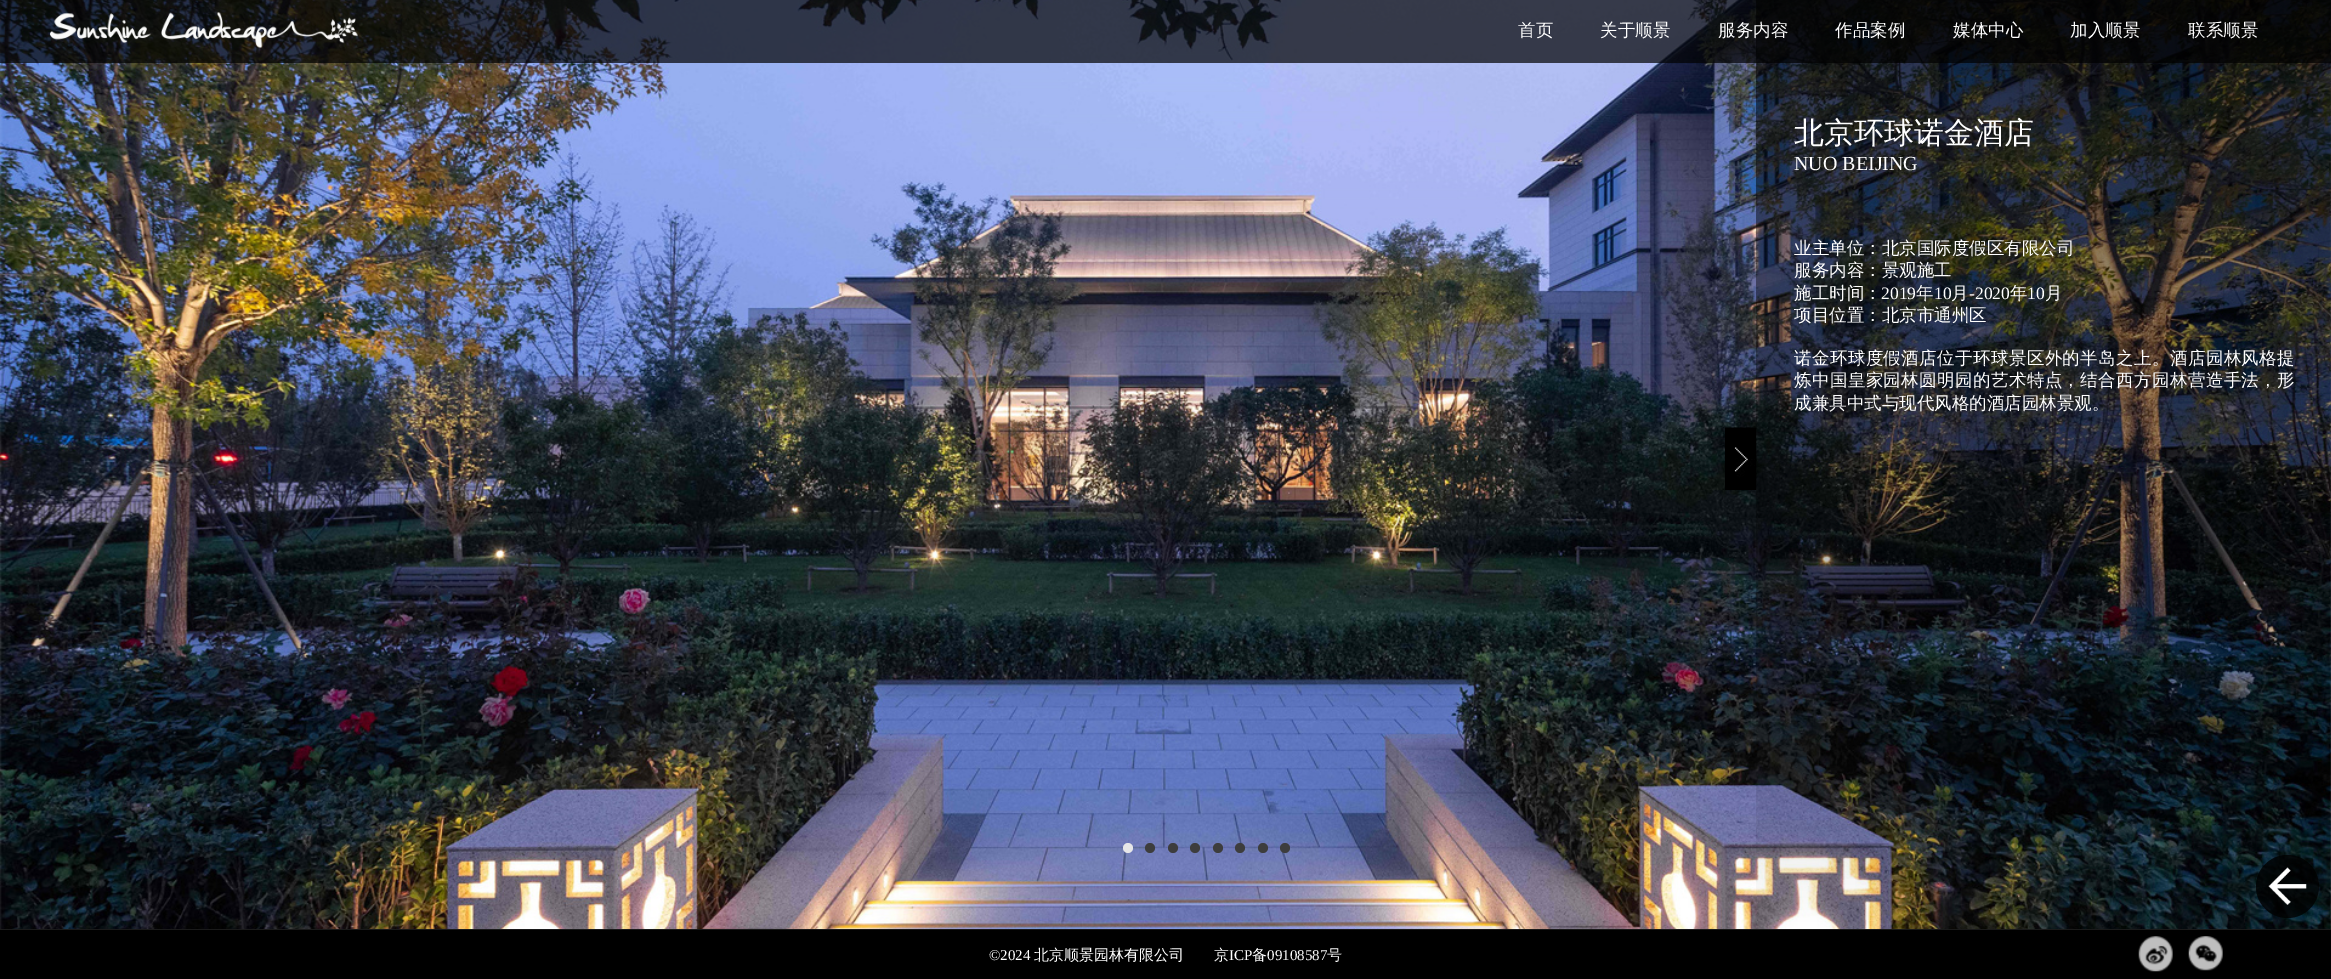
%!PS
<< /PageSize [2331 979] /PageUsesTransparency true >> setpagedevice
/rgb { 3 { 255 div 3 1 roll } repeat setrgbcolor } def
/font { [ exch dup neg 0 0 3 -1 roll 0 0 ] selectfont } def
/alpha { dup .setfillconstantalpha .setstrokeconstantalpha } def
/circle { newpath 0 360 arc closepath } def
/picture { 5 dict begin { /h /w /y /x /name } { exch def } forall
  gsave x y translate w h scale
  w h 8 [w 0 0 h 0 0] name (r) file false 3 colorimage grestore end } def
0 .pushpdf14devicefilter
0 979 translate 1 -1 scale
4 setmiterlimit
255 255 255 rgb
0 0 2331 979 rectfill
(img/2.rgb) 0 0 2331 929 picture
0.7 alpha
0 0 0 rgb
0 0 2331 63 rectfill
1 alpha
(img/1.rgb) 50 12 308 36 picture
230 231 232 rgb
1128 848 5 circle fill
61 61 61 rgb
1150 848 5 circle fill
1173 848 5 circle fill
1195 848 5 circle fill
1218 848 5 circle fill
1240 848 5 circle fill
1263 848 5 circle fill
1285 848 5 circle fill
(img/3.rgb) 1725 427 32 63 picture
0.8 alpha
0 0 0 rgb
2287.5 886.5 31.5 circle fill
1 alpha
(img/4.rgb) 2268 867 39 38 picture
0 930 2331 49 rectfill
26 26 26 rgb
0 929 2331 1 rectfill
(img/5.rgb) 2138 936 35 36 picture
(img/6.rgb) 2188 936 35 35 picture
/WenQuanYiZenHei-Medium 17.5 font
255 255 255 rgb
[
  [(首页) 1518 36]
  [(关于顺景) 1600 36]
  [(服务内容) 1718 36]
  [(作品案例) 1835 36]
  [(媒体中心) 1953 36]
  [(加入顺景) 2070 36]
  [(联系顺景) 2188 36]
] { aload pop moveto show } forall
/WenQuanYiZenHei-Medium 30 font
1794 143 moveto (北京环球诺金酒店) show
/LiberationSerif-Regular 20 font
1794 170 moveto (NUO BEIJING) show
/WenQuanYiZenHei-Medium 17.5 font
[
  [(业主单位：北京国际度假区有限公司) 1794 254]
  [(服务内容：景观施工) 1794 276]
  [(施工时间：) 1794 299]
] { aload pop moveto show } forall
/LiberationSerif-Regular 17.5 font
1881 299 moveto (2019) show
/WenQuanYiZenHei-Medium 17.5 font
1916 299 moveto (年) show
/LiberationSerif-Regular 17.5 font
1934 299 moveto (10) show
/WenQuanYiZenHei-Medium 17.5 font
1951 299 moveto (月) show
/LiberationSerif-Regular 17.5 font
1969 299 moveto (-2020) show
/WenQuanYiZenHei-Medium 17.5 font
2010 299 moveto (年) show
/LiberationSerif-Regular 17.5 font
2027 299 moveto (10) show
/WenQuanYiZenHei-Medium 17.5 font
2045 299 moveto (月) show
1794 321 moveto (项目位置：北京市通州区) show
1794 364 moveto 0.4 0 (诺金环球度假酒店位于环球景区外的半岛之上。酒店园林风格提) ashow
1794 386 moveto 0.4 0 (炼中国皇家园林圆明园的艺术特点，结合西方园林营造手法，形) ashow
1794 409 moveto (成兼具中式与现代风格的酒店园林景观。) show
/LiberationSerif-Regular 15 font
989 960 moveto (©2024) show
/WenQuanYiZenHei-Medium 15 font
1034 960 moveto (北京顺景园林有限公司) show
1214 960 moveto (京) show
/LiberationSerif-Regular 15 font
1229 960 moveto (ICP) show
/WenQuanYiZenHei-Medium 15 font
1252 960 moveto (备) show
/LiberationSerif-Regular 15 font
1267 960 moveto (09108587) show
/WenQuanYiZenHei-Medium 15 font
1327 960 moveto (号) show
.poppdf14devicefilter showpage
